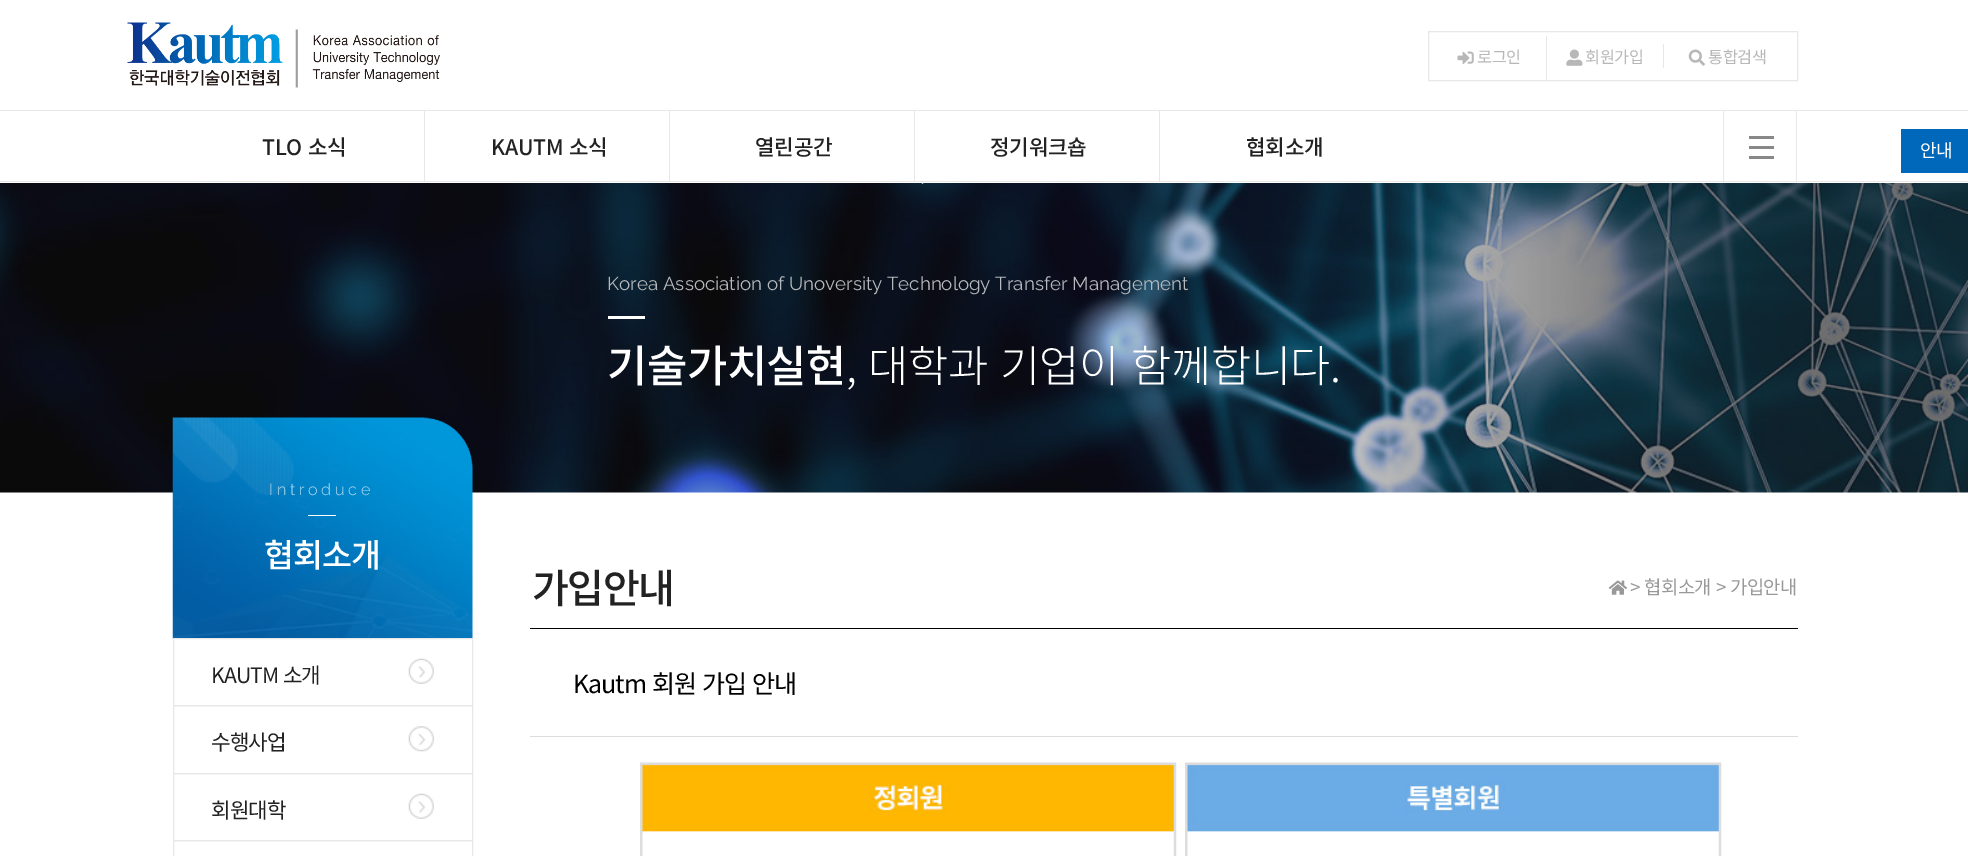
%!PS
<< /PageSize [1968 856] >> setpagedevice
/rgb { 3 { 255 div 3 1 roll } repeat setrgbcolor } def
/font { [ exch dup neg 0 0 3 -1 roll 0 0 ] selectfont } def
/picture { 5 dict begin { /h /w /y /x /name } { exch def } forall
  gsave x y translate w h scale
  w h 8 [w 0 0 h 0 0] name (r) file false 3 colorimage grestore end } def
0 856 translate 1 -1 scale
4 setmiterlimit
255 255 255 rgb
0 0 1968 856 rectfill
(img/1.rgb) 127 22 313 66 picture
232 232 232 rgb
1428.5 31.5 369 49 rectstroke
(img/2.rgb) 1457 51 17 13 picture
1546 36 1 44 rectfill
1663 44 1 24 rectfill
(img/3.rgb) 1566 49 17 17 picture
(img/4.rgb) 1688 49 17 17 picture
[
  [0 110 1968 1 232 232 232]
  [0 181 1968 1 232 232 232]
  [424 111 1 70 232 232 232]
  [669 111 1 70 232 232 232]
  [914 111 1 70 232 232 232]
  [1159 111 1 70 232 232 232]
  [1796 111 1 72 232 232 232]
  [1723 111 1 72 232 232 232]
  [1749 136 25 3 136 136 136]
  [1749 146 25 3 136 136 136]
  [1749 156 25 3 136 136 136]
  [1901 129 67 44 0 104 186]
] { aload pop rgb rectfill } forall
(img/5.rgb) 0 183 1968 310 picture
255 255 255 rgb
608 316 37 3 rectfill
(img/6.rgb) 172 417 301 222 picture
308 515 28 1 rectfill
232 232 232 rgb
173.5 638.5 299 67 rectstroke
(img/7.rgb) 408 658 26 26 picture
173.5 705.5 299 68 rectstroke
(img/8.rgb) 408 726 26 26 picture
173.5 773.5 299 67 rectstroke
(img/7.rgb) 408 793 26 26 picture
173.5 840.5 299 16 rectstroke
(img/9.rgb) 1608 580 19 15 picture
0 0 0 rgb
530 628 1268 1 rectfill
221 221 221 rgb
530 736 1268 1 rectfill
(img/10.rgb) 640 762 537 94 picture
(img/11.rgb) 1185 762 537 94 picture
/NotoSansKR-Regular 16.25 font
183 183 183 rgb
1477 63 moveto -0.25 0 (로그인) ashow
1585 63 moveto -0.25 0 (회원가입) ashow
1708 63 moveto -0.25 0 (통합검색) ashow
/NotoSansKR-Medium 21.25 font
34 34 34 rgb
262 155 moveto 1 0 32 -0.25 0 (TLO 소식) awidthshow
491 155 moveto 1 0 32 -0.25 0 (KAUTM 소식) awidthshow
755 155 moveto -0.25 0 (열린공간) ashow
990 155 moveto -0.25 0 (정기워크숍) ashow
1246 155 moveto -0.25 0 (협회소개) ashow
/NotoSansKR-Regular 18 font
255 255 255 rgb
1920 157 moveto -1 0 (안내) ashow
/Raleway-Regular 18.75 font
182 185 189 rgb
607 290 moveto (Korea Association of Unoversity Technology Transfer Management) show
/NotoSansKR-Medium 43.75 font
255 255 255 rgb
607 382 moveto -0.4 0 (기술가치실현) ashow
/NotoSansKR-Light 43.75 font
846 382 moveto 2.5 0 32 -0.4 0 (, 대학과 기업이 함께합니다.) awidthshow
/Raleway-Light 16.25 font
179 218 238 rgb
269 495 moveto 3.75 0 (Introduce) ashow
/NotoSansKR-Medium 32.5 font
255 255 255 rgb
264 567 moveto -1 0 (협회소개) ashow
/NotoSansKR-Regular 21.25 font
34 34 34 rgb
211 683 moveto 1 0 32 -1 0 (KAUTM 소개) awidthshow
211 750 moveto -1 0 (수행사업) ashow
211 818 moveto -1 0 (회원대학) ashow
/NotoSansKR-Medium 40 font
532 603 moveto -1.5 0 (가입안내) ashow
/NotoSansKR-Regular 18.75 font
153 153 153 rgb
1630 594 moveto 1 0 32 -0.6 0 (> 협회소개 > 가입안내) awidthshow
/NotoSansKR-Regular 25 font
0 0 0 rgb
573 693 moveto 1.5 0 32 -1 0 (Kautm 회원 가입 안내) awidthshow
showpage
